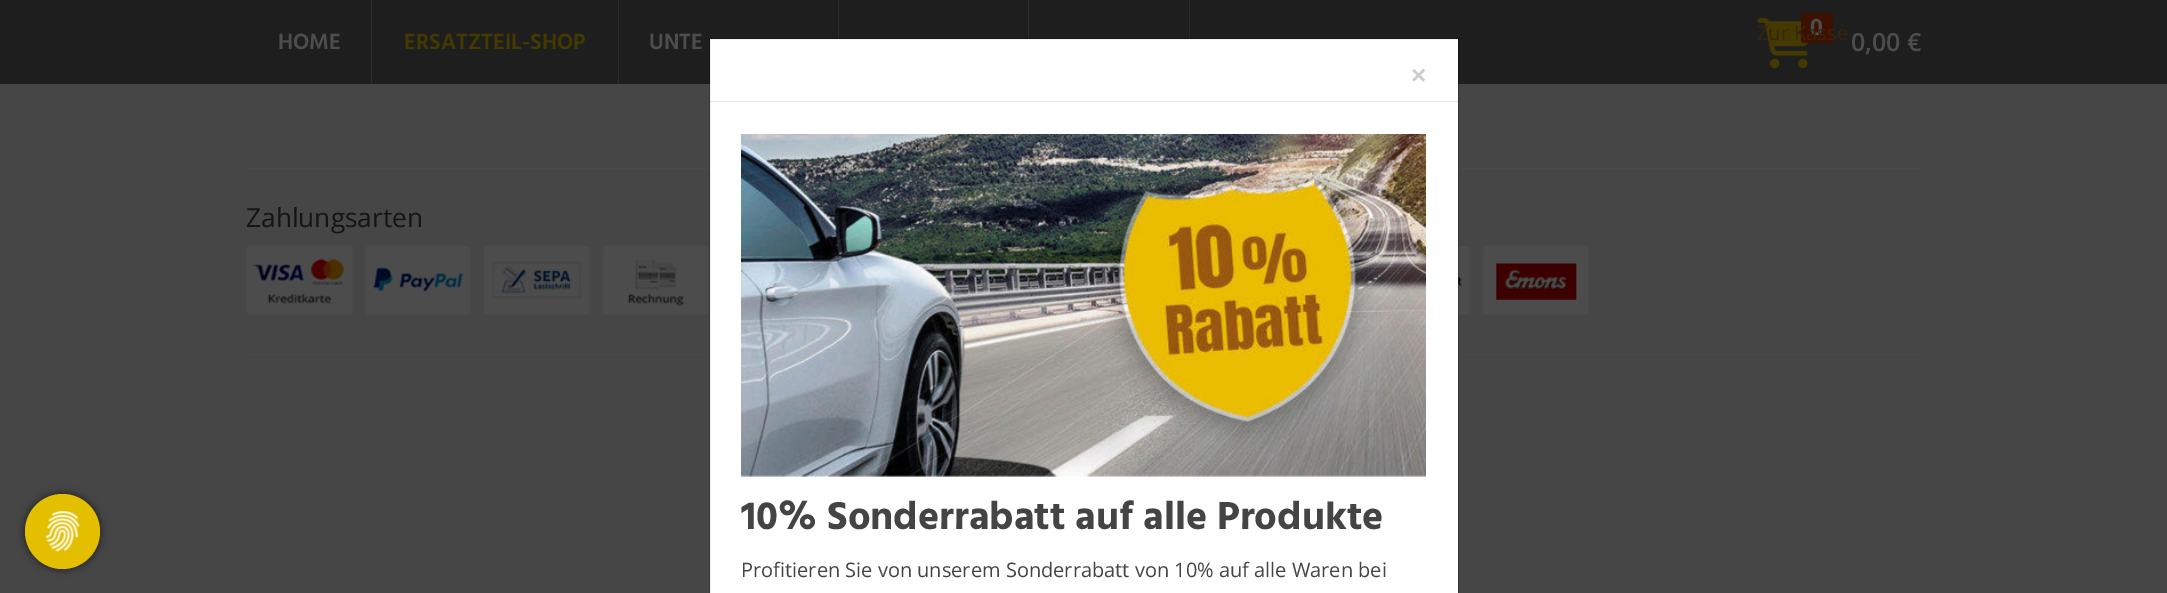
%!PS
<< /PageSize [2167 593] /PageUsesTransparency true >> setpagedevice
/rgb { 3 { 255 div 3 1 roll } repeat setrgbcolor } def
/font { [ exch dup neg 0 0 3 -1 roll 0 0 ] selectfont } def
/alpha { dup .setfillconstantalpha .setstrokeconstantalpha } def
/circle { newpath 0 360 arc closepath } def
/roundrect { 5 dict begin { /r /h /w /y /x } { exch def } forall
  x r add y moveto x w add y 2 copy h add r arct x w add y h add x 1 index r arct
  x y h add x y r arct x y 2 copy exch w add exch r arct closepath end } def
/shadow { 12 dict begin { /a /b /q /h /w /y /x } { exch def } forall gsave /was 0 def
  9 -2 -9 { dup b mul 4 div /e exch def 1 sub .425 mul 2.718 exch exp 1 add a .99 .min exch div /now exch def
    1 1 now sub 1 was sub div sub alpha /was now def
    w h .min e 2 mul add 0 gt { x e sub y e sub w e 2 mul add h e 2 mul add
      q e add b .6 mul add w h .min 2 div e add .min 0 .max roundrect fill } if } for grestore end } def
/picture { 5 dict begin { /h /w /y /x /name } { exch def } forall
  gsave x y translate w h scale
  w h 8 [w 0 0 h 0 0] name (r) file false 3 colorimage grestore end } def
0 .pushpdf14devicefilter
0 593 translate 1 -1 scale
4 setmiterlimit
70 70 70 rgb
0 0 2167 593 rectfill
[
  [0 0 2167 84 30 30 30]
  [838 0 1 39 44 44 45]
  [1028 0 1 39 44 44 45]
  [1189 0 1 39 44 44 45]
  [371 0 1 84 44 44 45]
  [618 0 1 84 44 44 45]
] { aload pop rgb rectfill } forall
(img/1.rgb) 1757 18 52 51 picture
60 17 0 rgb
1801 13 32 30 2.5 roundrect fill
73 73 73 rgb
246 168 1675 1 rectfill
(img/2.rgb) 246 246 107 69 picture
(img/3.rgb) 365 246 107 69 picture
(img/4.rgb) 483 246 107 69 picture
(img/5.rgb) 602 246 107 69 picture
(img/6.rgb) 1458 246 12 69 picture
(img/7.rgb) 1482 246 107 69 picture
246 354 1675 1 rectfill
255 255 255 rgb
710 39 748 554 rectfill
0.2 alpha
0 0 0 rgb
709.5 38.5 749 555 rectstroke
1 alpha
229 229 229 rgb
710 101 748 1 rectfill
(img/8.rgb) 741 134 685 343 picture
0 0 0 rgb
24 493 77 77 38.5 4 0.5 shadow
228 191 0 rgb
62.5 531.5 37.5 circle fill
(img/9.rgb) 45 511 35 41 picture
/HindMadurai-SemiBold 22.5 font
77 77 77 rgb
278 49 moveto (HOME) show
68 57 0 rgb
404 49 moveto (ERSATZTEIL-SHOP) show
77 77 77 rgb
649 49 moveto (UNTE) show
/OpenSans-Bold 22.5 font
1810 35 moveto (0) show
/OpenSans-Regular 20 font
54 36 14 rgb
1757 40 moveto (Zur Kasse) show
/OpenSans-SemiBold 25 font
77 77 77 rgb
1851 51 moveto (0,00 €) show
/OpenSans-Regular 26.25 font
20 20 20 rgb
246 227 moveto (Zahlungsarten) show
/LiberationSans-Bold 26.25 font
204 204 204 rgb
1411 84 moveto (×) show
/HindMadurai-Bold 40 font
68 68 68 rgb
741 529 moveto (10% Sonderrabatt auf alle Produkte) show
/OpenSans-Regular 20 font
741 577 moveto (Profitieren Sie von unserem Sonderrabatt von 10% auf alle Waren bei) show
.poppdf14devicefilter showpage
